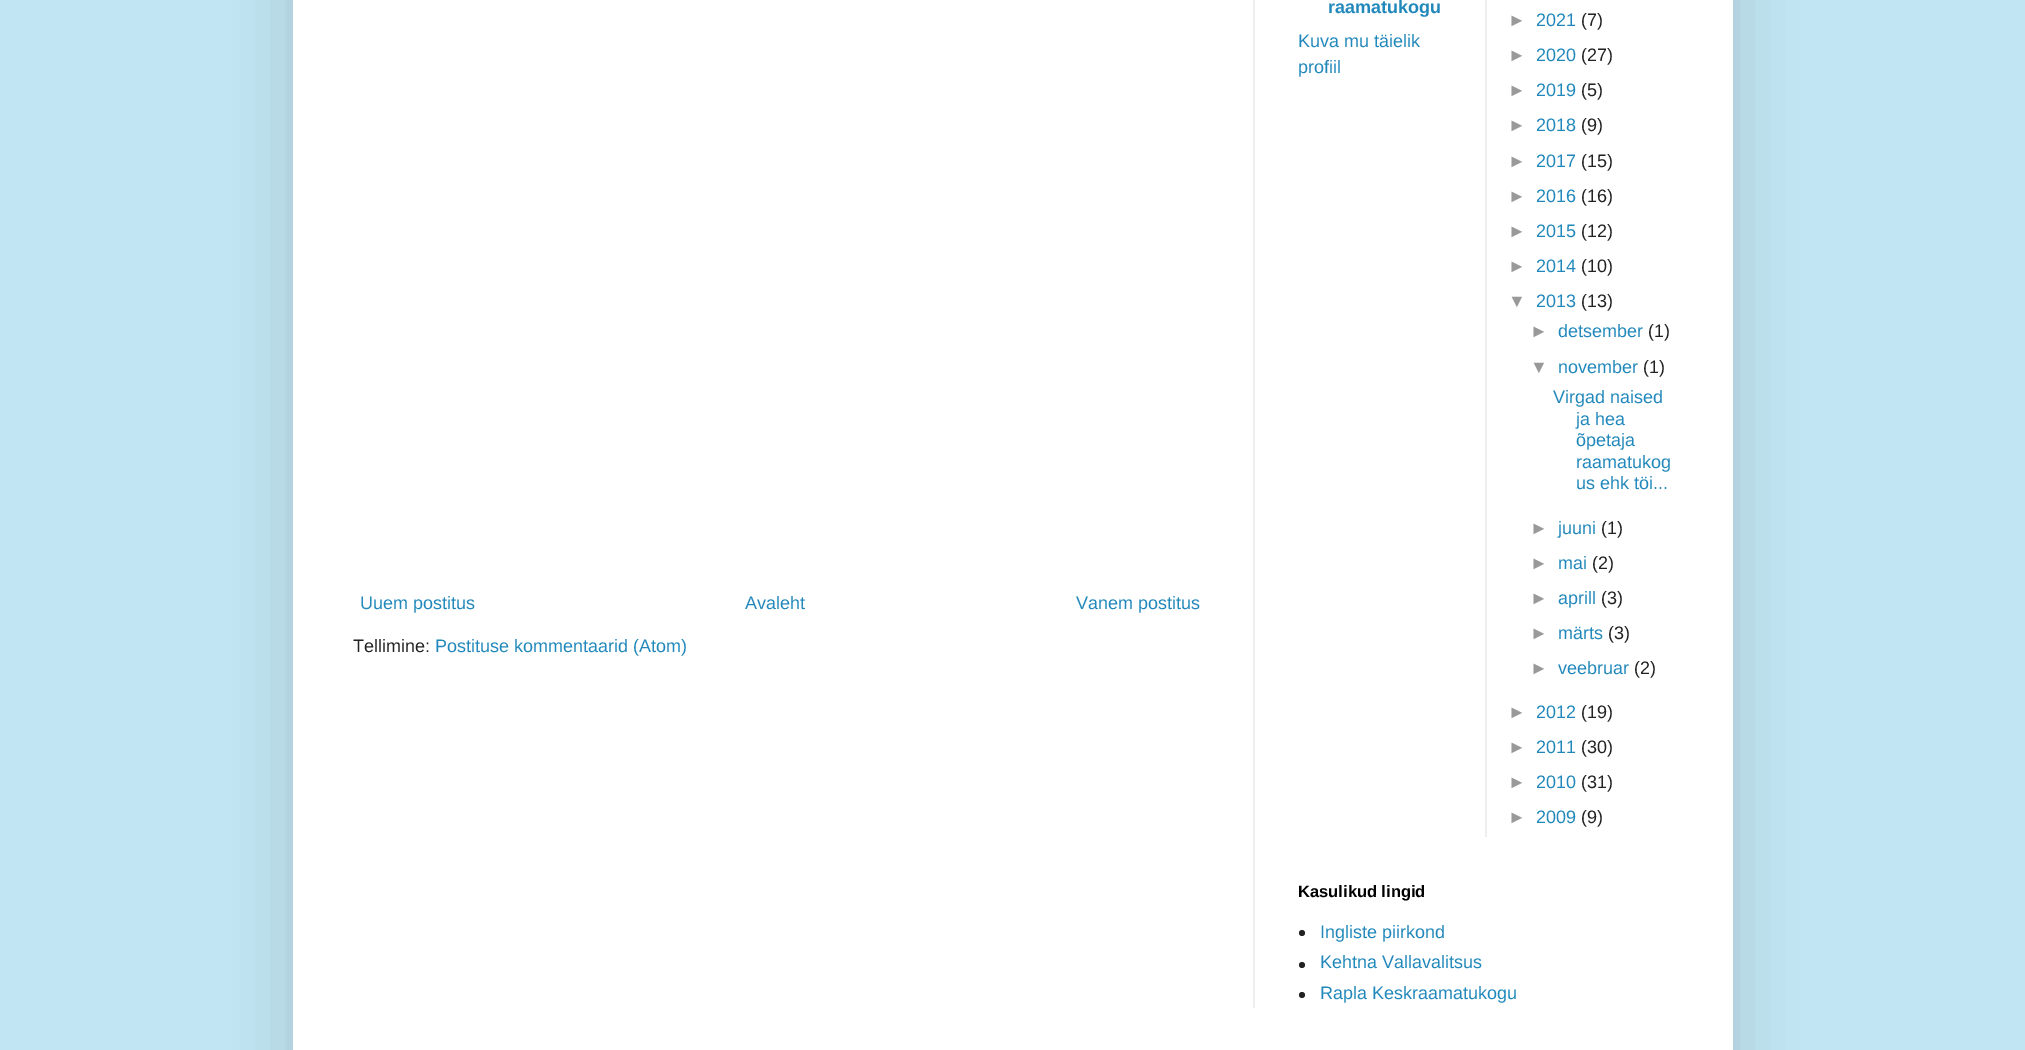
%!PS
<< /PageSize [2025 1050] /PageUsesTransparency true >> setpagedevice
/rgb { 3 { 255 div 3 1 roll } repeat setrgbcolor } def
/font { [ exch dup neg 0 0 3 -1 roll 0 0 ] selectfont } def
/alpha { dup .setfillconstantalpha .setstrokeconstantalpha } def
/circle { newpath 0 360 arc closepath } def
/roundrect { 5 dict begin { /r /h /w /y /x } { exch def } forall
  x r add y moveto x w add y 2 copy h add r arct x w add y h add x 1 index r arct
  x y h add x y r arct x y 2 copy exch w add exch r arct closepath end } def
/shadow { 12 dict begin { /a /b /q /h /w /y /x } { exch def } forall gsave /was 0 def
  9 -2 -9 { dup b mul 4 div /e exch def 1 sub .425 mul 2.718 exch exp 1 add a .99 .min exch div /now exch def
    1 1 now sub 1 was sub div sub alpha /was now def
    w h .min e 2 mul add 0 gt { x e sub y e sub w e 2 mul add h e 2 mul add
      q e add b .6 mul add w h .min 2 div e add .min 0 .max roundrect fill } if } for grestore end } def
0 .pushpdf14devicefilter
0 1050 translate 1 -1 scale
4 setmiterlimit
193 229 242 rgb
0 0 2025 1050 rectfill
0 0 0 rgb
293 -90 1440 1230 0 30 0.15 shadow
255 255 255 rgb
293 0 1440 1050 rectfill
238 238 238 rgb
1485 0 2 837 rectfill
34 34 34 rgb
1302 933 3 circle fill
1302 965 3 circle fill
1302 995 3 circle fill
238 238 238 rgb
1253 0 2 1008 rectfill
/LiberationSans-Regular 18 font
34 136 187 rgb
[
  [(Uuem postitus) 360 609]
  [(Avaleht) 745 609]
  [(Vanem postitus) 1076 609]
] { aload pop moveto show } forall
34 34 34 rgb
353 652 moveto (Tellimine:) show
34 136 187 rgb
435 652 moveto (Postituse kommentaarid \(Atom\)) show
/LiberationSans-Bold 18 font
1328 13 moveto (raamatukogu) show
/LiberationSans-Regular 18 font
1298 47 moveto (Kuva mu täielik) show
1298 73 moveto (profiil) show
153 153 153 rgb
1508 26 moveto (►) show
34 136 187 rgb
1536 26 moveto (2021) show
34 34 34 rgb
1581 26 moveto (\(7\)) show
153 153 153 rgb
1508 61 moveto (►) show
34 136 187 rgb
1536 61 moveto (2020) show
34 34 34 rgb
1581 61 moveto (\(27\)) show
153 153 153 rgb
1508 96 moveto (►) show
34 136 187 rgb
1536 96 moveto (2019) show
34 34 34 rgb
1581 96 moveto (\(5\)) show
153 153 153 rgb
1508 131 moveto (►) show
34 136 187 rgb
1536 131 moveto (2018) show
34 34 34 rgb
1581 131 moveto (\(9\)) show
153 153 153 rgb
1508 167 moveto (►) show
34 136 187 rgb
1536 167 moveto (2017) show
34 34 34 rgb
1581 167 moveto (\(15\)) show
153 153 153 rgb
1508 202 moveto (►) show
34 136 187 rgb
1536 202 moveto (2016) show
34 34 34 rgb
1581 202 moveto (\(16\)) show
153 153 153 rgb
1508 237 moveto (►) show
34 136 187 rgb
1536 237 moveto (2015) show
34 34 34 rgb
1581 237 moveto (\(12\)) show
153 153 153 rgb
1508 272 moveto (►) show
34 136 187 rgb
1536 272 moveto (2014) show
34 34 34 rgb
1581 272 moveto (\(10\)) show
153 153 153 rgb
1508 307 moveto (▼) show
34 136 187 rgb
1536 307 moveto (2013) show
34 34 34 rgb
1581 307 moveto (\(13\)) show
153 153 153 rgb
1530 337 moveto (►) show
34 136 187 rgb
1558 337 moveto (detsember) show
34 34 34 rgb
1648 337 moveto (\(1\)) show
153 153 153 rgb
1530 373 moveto (▼) show
34 136 187 rgb
1558 373 moveto (november) show
34 34 34 rgb
1643 373 moveto (\(1\)) show
34 136 187 rgb
[
  [(Virgad naised) 1553 403]
  [(ja hea) 1576 425]
  [(õpetaja) 1576 446]
  [(raamatukog) 1576 468]
  [(us ehk töi...) 1576 489]
] { aload pop moveto show } forall
153 153 153 rgb
1530 534 moveto (►) show
34 136 187 rgb
1558 534 moveto (juuni) show
34 34 34 rgb
1601 534 moveto (\(1\)) show
153 153 153 rgb
1530 569 moveto (►) show
34 136 187 rgb
1558 569 moveto (mai) show
34 34 34 rgb
1592 569 moveto (\(2\)) show
153 153 153 rgb
1530 604 moveto (►) show
34 136 187 rgb
1558 604 moveto (aprill) show
34 34 34 rgb
1601 604 moveto (\(3\)) show
153 153 153 rgb
1530 639 moveto (►) show
34 136 187 rgb
1558 639 moveto (märts) show
34 34 34 rgb
1608 639 moveto (\(3\)) show
153 153 153 rgb
1530 674 moveto (►) show
34 136 187 rgb
1558 674 moveto (veebruar) show
34 34 34 rgb
1634 674 moveto (\(2\)) show
153 153 153 rgb
1508 718 moveto (►) show
34 136 187 rgb
1536 718 moveto (2012) show
34 34 34 rgb
1581 718 moveto (\(19\)) show
153 153 153 rgb
1508 753 moveto (►) show
34 136 187 rgb
1536 753 moveto (2011) show
34 34 34 rgb
1581 753 moveto (\(30\)) show
153 153 153 rgb
1508 788 moveto (►) show
34 136 187 rgb
1536 788 moveto (2010) show
34 34 34 rgb
1581 788 moveto (\(31\)) show
153 153 153 rgb
1508 823 moveto (►) show
34 136 187 rgb
1536 823 moveto (2009) show
34 34 34 rgb
1581 823 moveto (\(9\)) show
/LiberationSans-Bold 16.5 font
0 0 0 rgb
1298 897 moveto (Kasulikud lingid) show
/LiberationSans-Regular 18 font
34 136 187 rgb
[
  [(Ingliste piirkond) 1320 938]
  [(Kehtna Vallavalitsus) 1320 968]
  [(Rapla Keskraamatukogu) 1320 999]
] { aload pop moveto show } forall
.poppdf14devicefilter showpage
